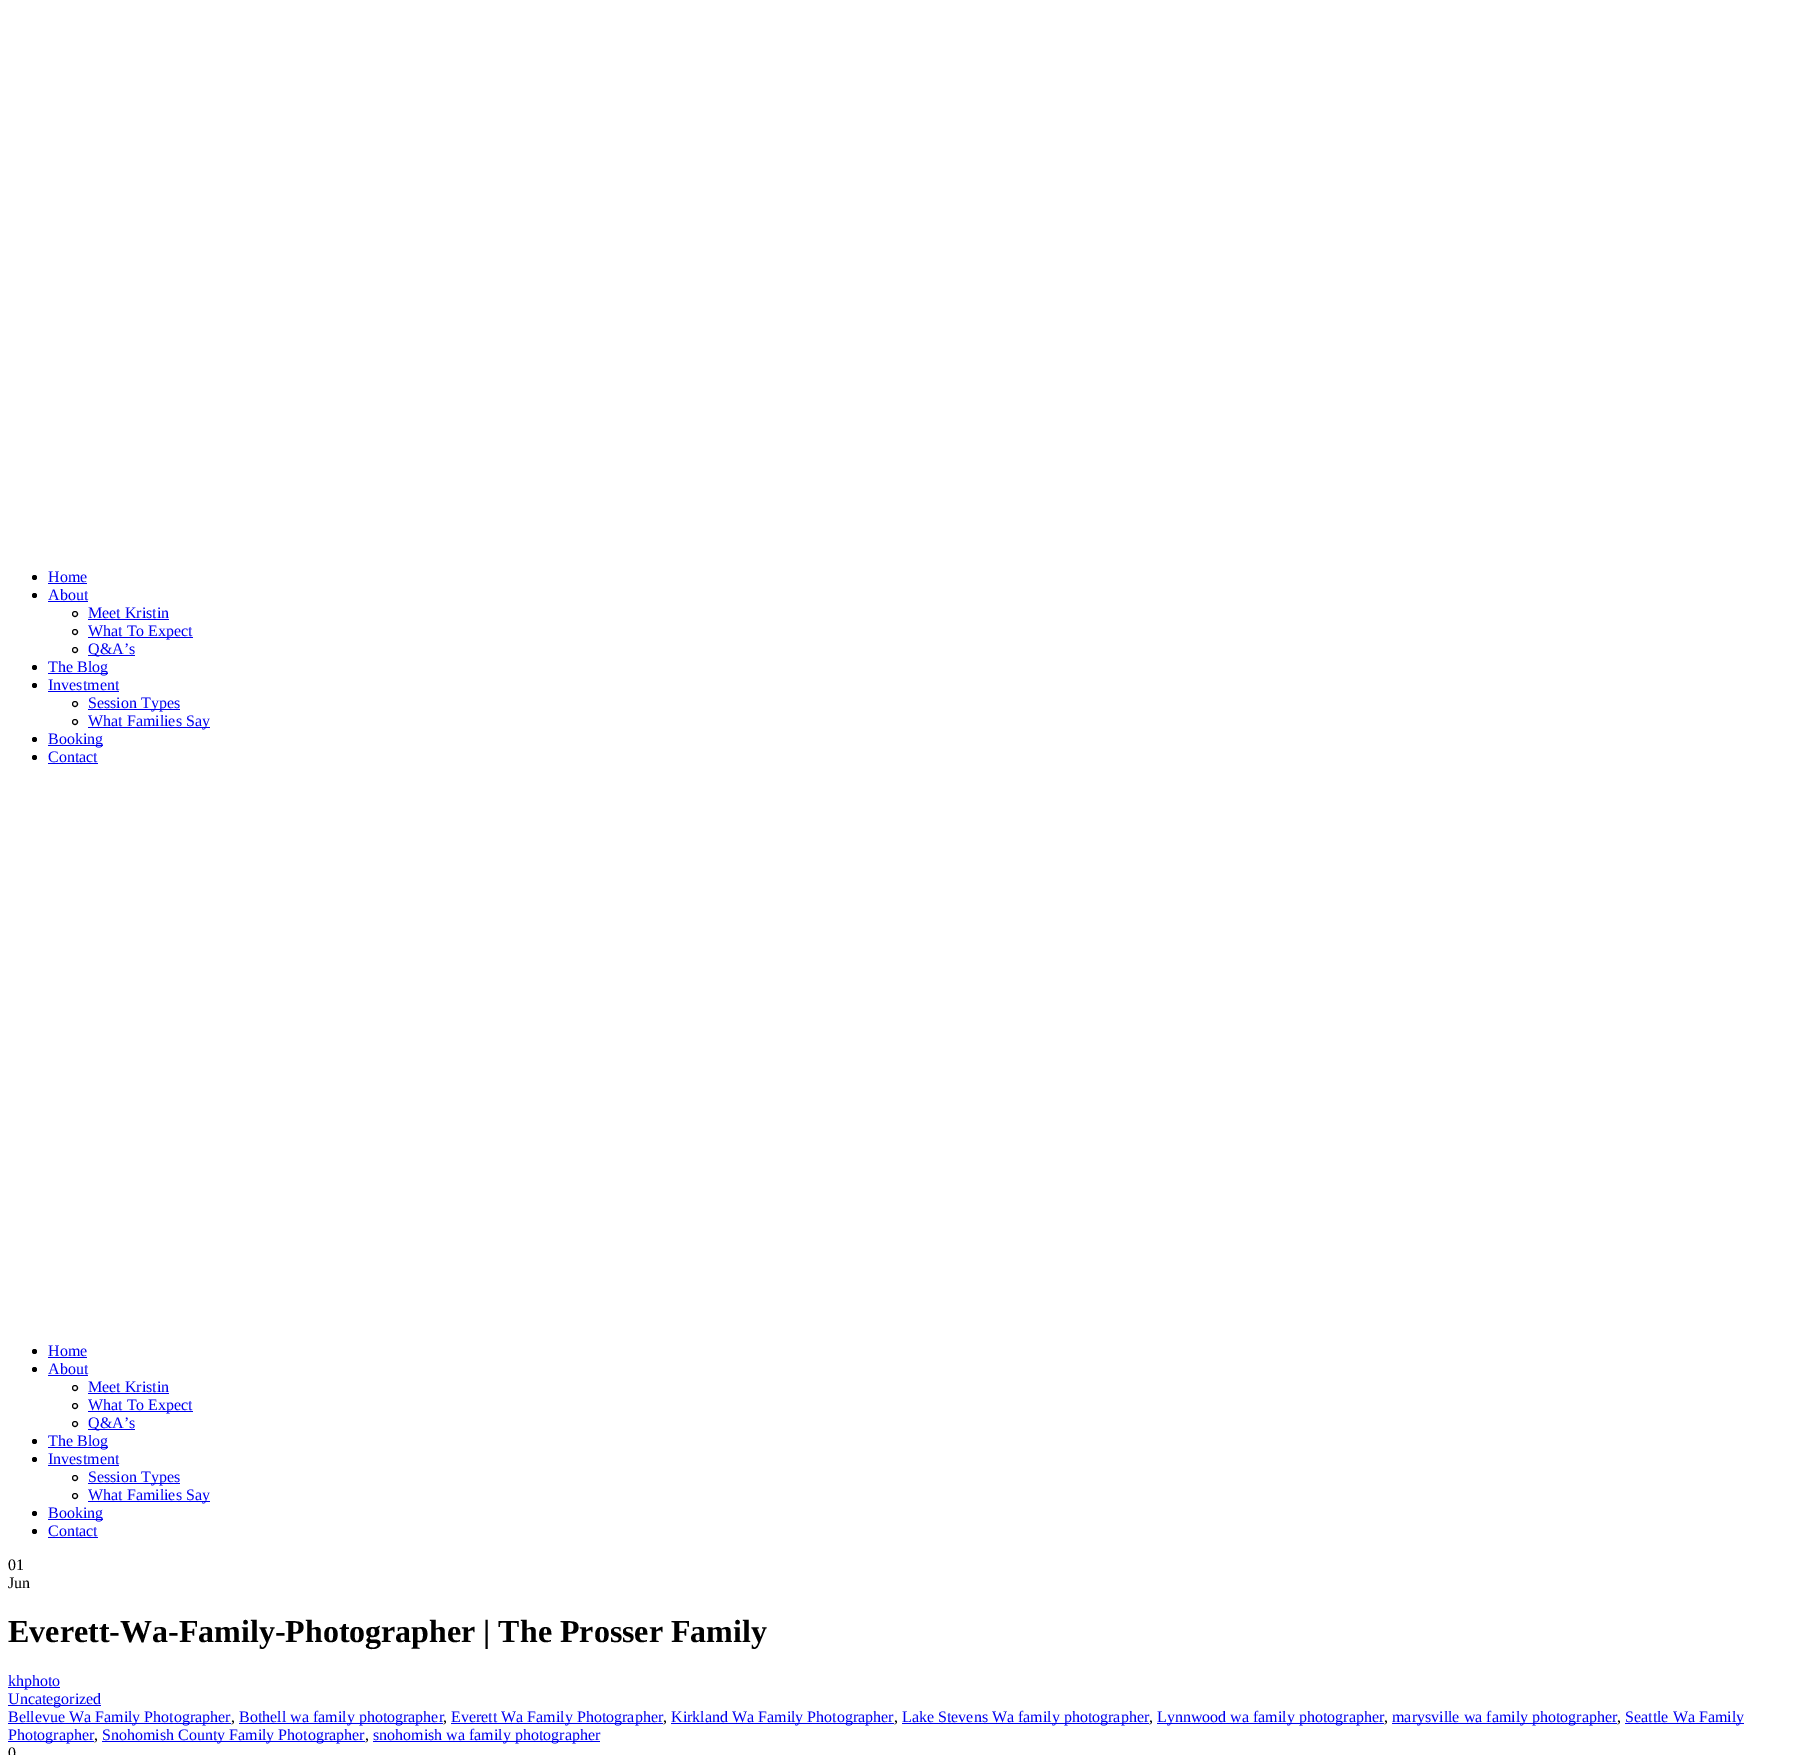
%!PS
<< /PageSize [1799 1755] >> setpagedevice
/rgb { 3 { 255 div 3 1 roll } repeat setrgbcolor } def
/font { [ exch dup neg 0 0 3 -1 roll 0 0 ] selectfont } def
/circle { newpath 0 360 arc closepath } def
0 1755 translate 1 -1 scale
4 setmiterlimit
255 255 255 rgb
0 0 1799 1755 rectfill
0 0 0 rgb
34.5 577.5 2.5 circle fill
0 0 238 rgb
48 583 39 1 rectfill
0 0 0 rgb
34.5 595.5 2.5 circle fill
0 0 238 rgb
48 601 40 1 rectfill
0 0 0 rgb
75 614 2.5 circle stroke
0 0 238 rgb
88 619 81 1 rectfill
0 0 0 rgb
75 632 2.5 circle stroke
0 0 238 rgb
88 637 105 1 rectfill
0 0 0 rgb
75 650 2.5 circle stroke
0 0 238 rgb
88 655 47 1 rectfill
0 0 0 rgb
34.5 667.5 2.5 circle fill
0 0 238 rgb
48 673 60 1 rectfill
0 0 0 rgb
34.5 685.5 2.5 circle fill
0 0 238 rgb
48 691 71 1 rectfill
0 0 0 rgb
75 704 2.5 circle stroke
0 0 238 rgb
88 709 92 1 rectfill
0 0 0 rgb
75 722 2.5 circle stroke
0 0 238 rgb
88 727 122 1 rectfill
0 0 0 rgb
34.5 739.5 2.5 circle fill
0 0 238 rgb
48 745 55 1 rectfill
0 0 0 rgb
34.5 757.5 2.5 circle fill
0 0 238 rgb
48 763 50 1 rectfill
0 0 0 rgb
34.5 1351.5 2.5 circle fill
0 0 238 rgb
48 1357 39 1 rectfill
0 0 0 rgb
34.5 1369.5 2.5 circle fill
0 0 238 rgb
48 1375 40 1 rectfill
0 0 0 rgb
75 1388 2.5 circle stroke
0 0 238 rgb
88 1393 81 1 rectfill
0 0 0 rgb
75 1406 2.5 circle stroke
0 0 238 rgb
88 1411 105 1 rectfill
0 0 0 rgb
75 1424 2.5 circle stroke
0 0 238 rgb
88 1429 47 1 rectfill
0 0 0 rgb
34.5 1441.5 2.5 circle fill
0 0 238 rgb
48 1447 60 1 rectfill
0 0 0 rgb
34.5 1459.5 2.5 circle fill
0 0 238 rgb
48 1465 71 1 rectfill
0 0 0 rgb
75 1478 2.5 circle stroke
0 0 238 rgb
88 1483 92 1 rectfill
0 0 0 rgb
75 1496 2.5 circle stroke
0 0 238 rgb
88 1501 122 1 rectfill
0 0 0 rgb
34.5 1513.5 2.5 circle fill
0 0 238 rgb
48 1519 55 1 rectfill
0 0 0 rgb
34.5 1531.5 2.5 circle fill
[
  [48 1537 50 1 0 0 238]
  [8 1687 52 1 0 0 238]
  [8 1705 93 1 0 0 238]
  [8 1723 223 1 0 0 238]
  [239 1723 204 1 0 0 238]
  [451 1723 212 1 0 0 238]
  [671 1723 223 1 0 0 238]
  [902 1723 247 1 0 0 238]
  [1157 1723 227 1 0 0 238]
  [1392 1723 225 1 0 0 238]
  [1625 1723 119 1 0 0 238]
  [8 1741 86 1 0 0 238]
  [102 1741 263 1 0 0 238]
  [373 1741 227 1 0 0 238]
] { aload pop rgb rectfill } forall
/LiberationSerif-Regular 16 font
[
  [(Home) 48 582]
  [(About) 48 600]
  [(Meet Kristin) 88 618]
  [(What To Expect) 88 636]
  [(Q&A’s) 88 654]
  [(The Blog) 48 672]
  [(Investment) 48 690]
  [(Session Types) 88 708]
  [(What Families Say) 88 726]
  [(Booking) 48 744]
  [(Contact) 48 762]
  [(Home) 48 1356]
  [(About) 48 1374]
  [(Meet Kristin) 88 1392]
  [(What To Expect) 88 1410]
  [(Q&A’s) 88 1428]
  [(The Blog) 48 1446]
  [(Investment) 48 1464]
  [(Session Types) 88 1482]
  [(What Families Say) 88 1500]
  [(Booking) 48 1518]
  [(Contact) 48 1536]
] { aload pop moveto show } forall
0 0 0 rgb
8 1570 moveto (01) show
8 1588 moveto (Jun) show
/LiberationSerif-Bold 32 font
8 1642 moveto (Everett-Wa-Family-Photographer | The Prosser Family) show
/LiberationSerif-Regular 16 font
0 0 238 rgb
[
  [(khphoto) 8 1686]
  [(Uncategorized) 8 1704]
  [(Bellevue Wa Family Photographer) 8 1722]
] { aload pop moveto show } forall
0 0 0 rgb
231 1722 moveto (,) show
0 0 238 rgb
239 1722 moveto (Bothell wa family photographer) show
0 0 0 rgb
443 1722 moveto (,) show
0 0 238 rgb
451 1722 moveto (Everett Wa Family Photographer) show
0 0 0 rgb
663 1722 moveto (,) show
0 0 238 rgb
671 1722 moveto (Kirkland Wa Family Photographer) show
0 0 0 rgb
894 1722 moveto (,) show
0 0 238 rgb
902 1722 moveto (Lake Stevens Wa family photographer) show
0 0 0 rgb
1149 1722 moveto (,) show
0 0 238 rgb
1157 1722 moveto (Lynnwood wa family photographer) show
0 0 0 rgb
1384 1722 moveto (,) show
0 0 238 rgb
1392 1722 moveto (marysville wa family photographer) show
0 0 0 rgb
1617 1722 moveto (,) show
0 0 238 rgb
1625 1722 moveto (Seattle Wa Family) show
8 1740 moveto (Photographer) show
0 0 0 rgb
94 1740 moveto (,) show
0 0 238 rgb
102 1740 moveto (Snohomish County Family Photographer) show
0 0 0 rgb
365 1740 moveto (,) show
0 0 238 rgb
373 1740 moveto (snohomish wa family photographer) show
0 0 0 rgb
8 1758 moveto (0) show
showpage
